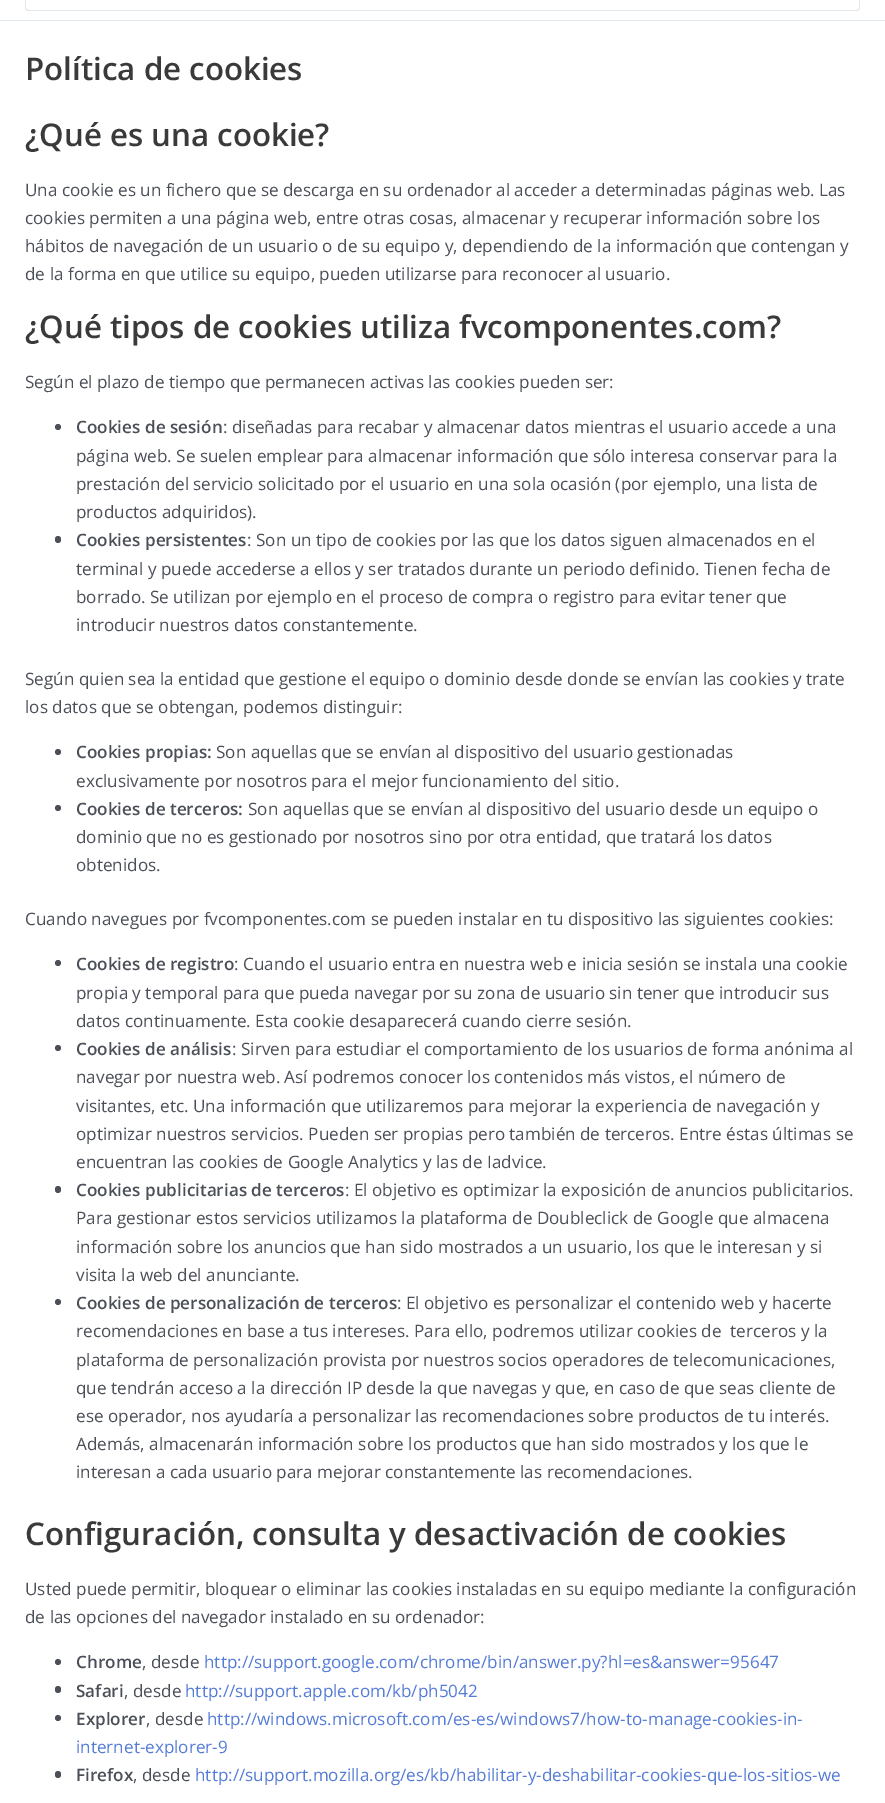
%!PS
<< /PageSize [885 1803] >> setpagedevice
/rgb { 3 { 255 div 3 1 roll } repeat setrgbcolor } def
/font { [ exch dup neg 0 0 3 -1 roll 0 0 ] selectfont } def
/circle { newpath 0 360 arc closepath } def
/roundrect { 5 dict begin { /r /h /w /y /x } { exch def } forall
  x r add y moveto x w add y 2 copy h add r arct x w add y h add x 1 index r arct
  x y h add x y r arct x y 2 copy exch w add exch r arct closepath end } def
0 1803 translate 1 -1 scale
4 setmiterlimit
255 255 255 rgb
0 0 885 1803 rectfill
225 232 237 rgb
0 20 885 1 rectfill
808 -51 moveto 856 -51 lineto 858 -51 860 -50 860 -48 curveto 860 8 lineto 860 10 858 11 856 11 curveto 808 11 lineto closepath 808 -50 moveto 856 -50 lineto 858 -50 859 -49 859 -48 curveto 859 8 lineto 859 9 858 10 856 10 curveto 808 10 lineto closepath eofill
29 -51 moveto 811 -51 lineto 811 11 lineto 29 11 lineto 27 11 25 10 25 8 curveto 25 -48 lineto 25 -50 27 -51 29 -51 curveto closepath 29 -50 moveto 811 -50 lineto 811 10 lineto 29 10 lineto 27 10 26 9 26 8 curveto 26 -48 lineto 26 -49 27 -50 29 -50 curveto closepath eofill
75 79 88 rgb
58 427 3 circle fill
55 536 6 7 3 roundrect fill
58 752 3 circle fill
58 808 3 circle fill
58 963 3 circle fill
58 1048 3 circle fill
55 1186 6 7 3 roundrect fill
58 1302 3 circle fill
58 1662 3 circle fill
55 1686 6 7 3 roundrect fill
58 1718 3 circle fill
55 1771 6 7 3 roundrect fill
/OpenSans-SemiBold 31.25 font
58 58 58 rgb
25 80 moveto (Política de cookies) show
25 146 moveto (¿Qué es una cookie?) show
/OpenSans-Regular 17.1 font
75 79 88 rgb
[
  [(Una cookie es un fichero que se descarga en su ordenador al acceder a determinadas páginas web. Las) 25 196]
  [(cookies permiten a una página web, entre otras cosas, almacenar y recuperar información sobre los) 25 224]
  [(hábitos de navegación de un usuario o de su equipo y, dependiendo de la información que contengan y) 25 252]
  [(de la forma en que utilice su equipo, pueden utilizarse para reconocer al usuario.) 25 280]
] { aload pop moveto show } forall
/OpenSans-SemiBold 31.25 font
58 58 58 rgb
25 338 moveto (¿Qué tipos de cookies utiliza fvcomponentes.com?) show
/OpenSans-Regular 17.1 font
75 79 88 rgb
25 388 moveto (Según el plazo de tiempo que permanecen activas las cookies pueden ser:) show
/OpenSans-SemiBold 17.1 font
76 433 moveto (Cookies de sesión) show
/OpenSans-Regular 17.1 font
[
  [(: diseñadas para recabar y almacenar datos mientras el usuario accede a una) 223 433]
  [(página web. Se suelen emplear para almacenar información que sólo interesa conservar para la) 76 462]
  [(prestación del servicio solicitado por el usuario en una sola ocasión \(por ejemplo, una lista de) 76 490]
  [(productos adquiridos\).) 76 518]
] { aload pop moveto show } forall
/OpenSans-SemiBold 17.1 font
76 546 moveto (Cookies persistentes) show
/OpenSans-Regular 17.1 font
[
  [(: Son un tipo de cookies por las que los datos siguen almacenados en el) 247 546]
  [(terminal y puede accederse a ellos y ser tratados durante un periodo definido. Tienen fecha de) 76 575]
  [(borrado. Se utilizan por ejemplo en el proceso de compra o registro para evitar tener que) 76 603]
  [(introducir nuestros datos constantemente.) 76 631]
  [(Según quien sea la entidad que gestione el equipo o dominio desde donde se envían las cookies y trate) 25 685]
  [(los datos que se obtengan, podemos distinguir:) 25 713]
] { aload pop moveto show } forall
/OpenSans-SemiBold 17.1 font
76 758 moveto (Cookies propias:) show
/OpenSans-Regular 17.1 font
216 758 moveto (Son aquellas que se envían al dispositivo del usuario gestionadas) show
76 787 moveto (exclusivamente por nosotros para el mejor funcionamiento del sitio.) show
/OpenSans-SemiBold 17.1 font
76 815 moveto (Cookies de terceros:) show
/OpenSans-Regular 17.1 font
[
  [(Son aquellas que se envían al dispositivo del usuario desde un equipo o) 248 815]
  [(dominio que no es gestionado por nosotros sino por otra entidad, que tratará los datos) 76 843]
  [(obtenidos.) 76 871]
  [(Cuando navegues por fvcomponentes.com se pueden instalar en tu dispositivo las siguientes cookies:) 25 925]
] { aload pop moveto show } forall
/OpenSans-SemiBold 17.1 font
76 970 moveto (Cookies de registro) show
/OpenSans-Regular 17.1 font
[
  [(: Cuando el usuario entra en nuestra web e inicia sesión se instala una cookie) 234 970]
  [(propia y temporal para que pueda navegar por su zona de usuario sin tener que introducir sus) 76 999]
  [(datos continuamente. Esta cookie desaparecerá cuando cierre sesión.) 76 1027]
] { aload pop moveto show } forall
/OpenSans-SemiBold 17.1 font
76 1055 moveto (Cookies de análisis) show
/OpenSans-Regular 17.1 font
[
  [(: Sirven para estudiar el comportamiento de los usuarios de forma anónima al) 232 1055]
  [(navegar por nuestra web. Así podremos conocer los contenidos más vistos, el número de) 76 1083]
  [(visitantes, etc. Una información que utilizaremos para mejorar la experiencia de navegación y) 76 1112]
  [(optimizar nuestros servicios. Pueden ser propias pero también de terceros. Entre éstas últimas se) 76 1140]
  [(encuentran las cookies de Google Analytics y las de Iadvice.) 76 1168]
] { aload pop moveto show } forall
/OpenSans-SemiBold 17.1 font
76 1196 moveto (Cookies publicitarias de terceros) show
/OpenSans-Regular 17.1 font
[
  [(: El objetivo es optimizar la exposición de anuncios publicitarios.) 345 1196]
  [(Para gestionar estos servicios utilizamos la plataforma de Doubleclick de Google que almacena) 76 1224]
  [(información sobre los anuncios que han sido mostrados a un usuario, los que le interesan y si) 76 1253]
  [(visita la web del anunciante.) 76 1281]
] { aload pop moveto show } forall
/OpenSans-SemiBold 17.1 font
76 1309 moveto (Cookies de personalización de terceros) show
/OpenSans-Regular 17.1 font
[
  [(: El objetivo es personalizar el contenido web y hacerte) 397 1309]
  [(recomendaciones en base a tus intereses. Para ello, podremos utilizar cookies de  terceros y la) 76 1337]
  [(plataforma de personalización provista por nuestros socios operadores de telecomunicaciones,) 76 1366]
  [(que tendrán acceso a la dirección IP desde la que navegas y que, en caso de que seas cliente de) 76 1394]
  [(ese operador, nos ayudaría a personalizar las recomendaciones sobre productos de tu interés.) 76 1422]
  [(Además, almacenarán información sobre los productos que han sido mostrados y los que le) 76 1450]
  [(interesan a cada usuario para mejorar constantemente las recomendaciones.) 76 1478]
] { aload pop moveto show } forall
/OpenSans-SemiBold 31.25 font
58 58 58 rgb
25 1545 moveto (Configuración, consulta y desactivación de cookies) show
/OpenSans-Regular 17.1 font
75 79 88 rgb
25 1595 moveto (Usted puede permitir, bloquear o eliminar las cookies instaladas en su equipo mediante la configuración) show
25 1623 moveto (de las opciones del navegador instalado en su ordenador:) show
/OpenSans-SemiBold 17.1 font
76 1668 moveto (Chrome) show
/OpenSans-Regular 17.1 font
142 1668 moveto (, desde) show
85 124 214 rgb
204 1668 moveto (http://support.google.com/chrome/bin/answer.py?hl=es&answer=95647) show
/OpenSans-SemiBold 17.1 font
75 79 88 rgb
76 1697 moveto (Safari) show
/OpenSans-Regular 17.1 font
124 1697 moveto (, desde) show
85 124 214 rgb
185 1697 moveto (http://support.apple.com/kb/ph5042) show
/OpenSans-SemiBold 17.1 font
75 79 88 rgb
76 1725 moveto (Explorer) show
/OpenSans-Regular 17.1 font
146 1725 moveto (, desde) show
85 124 214 rgb
207 1725 moveto (http://windows.microsoft.com/es-es/windows7/how-to-manage-cookies-in-) show
76 1753 moveto (internet-explorer-9) show
/OpenSans-SemiBold 17.1 font
75 79 88 rgb
76 1781 moveto (Firefox) show
/OpenSans-Regular 17.1 font
133 1781 moveto (, desde) show
85 124 214 rgb
195 1781 moveto (http://support.mozilla.org/es/kb/habilitar-y-deshabilitar-cookies-que-los-sitios-we) show
showpage
